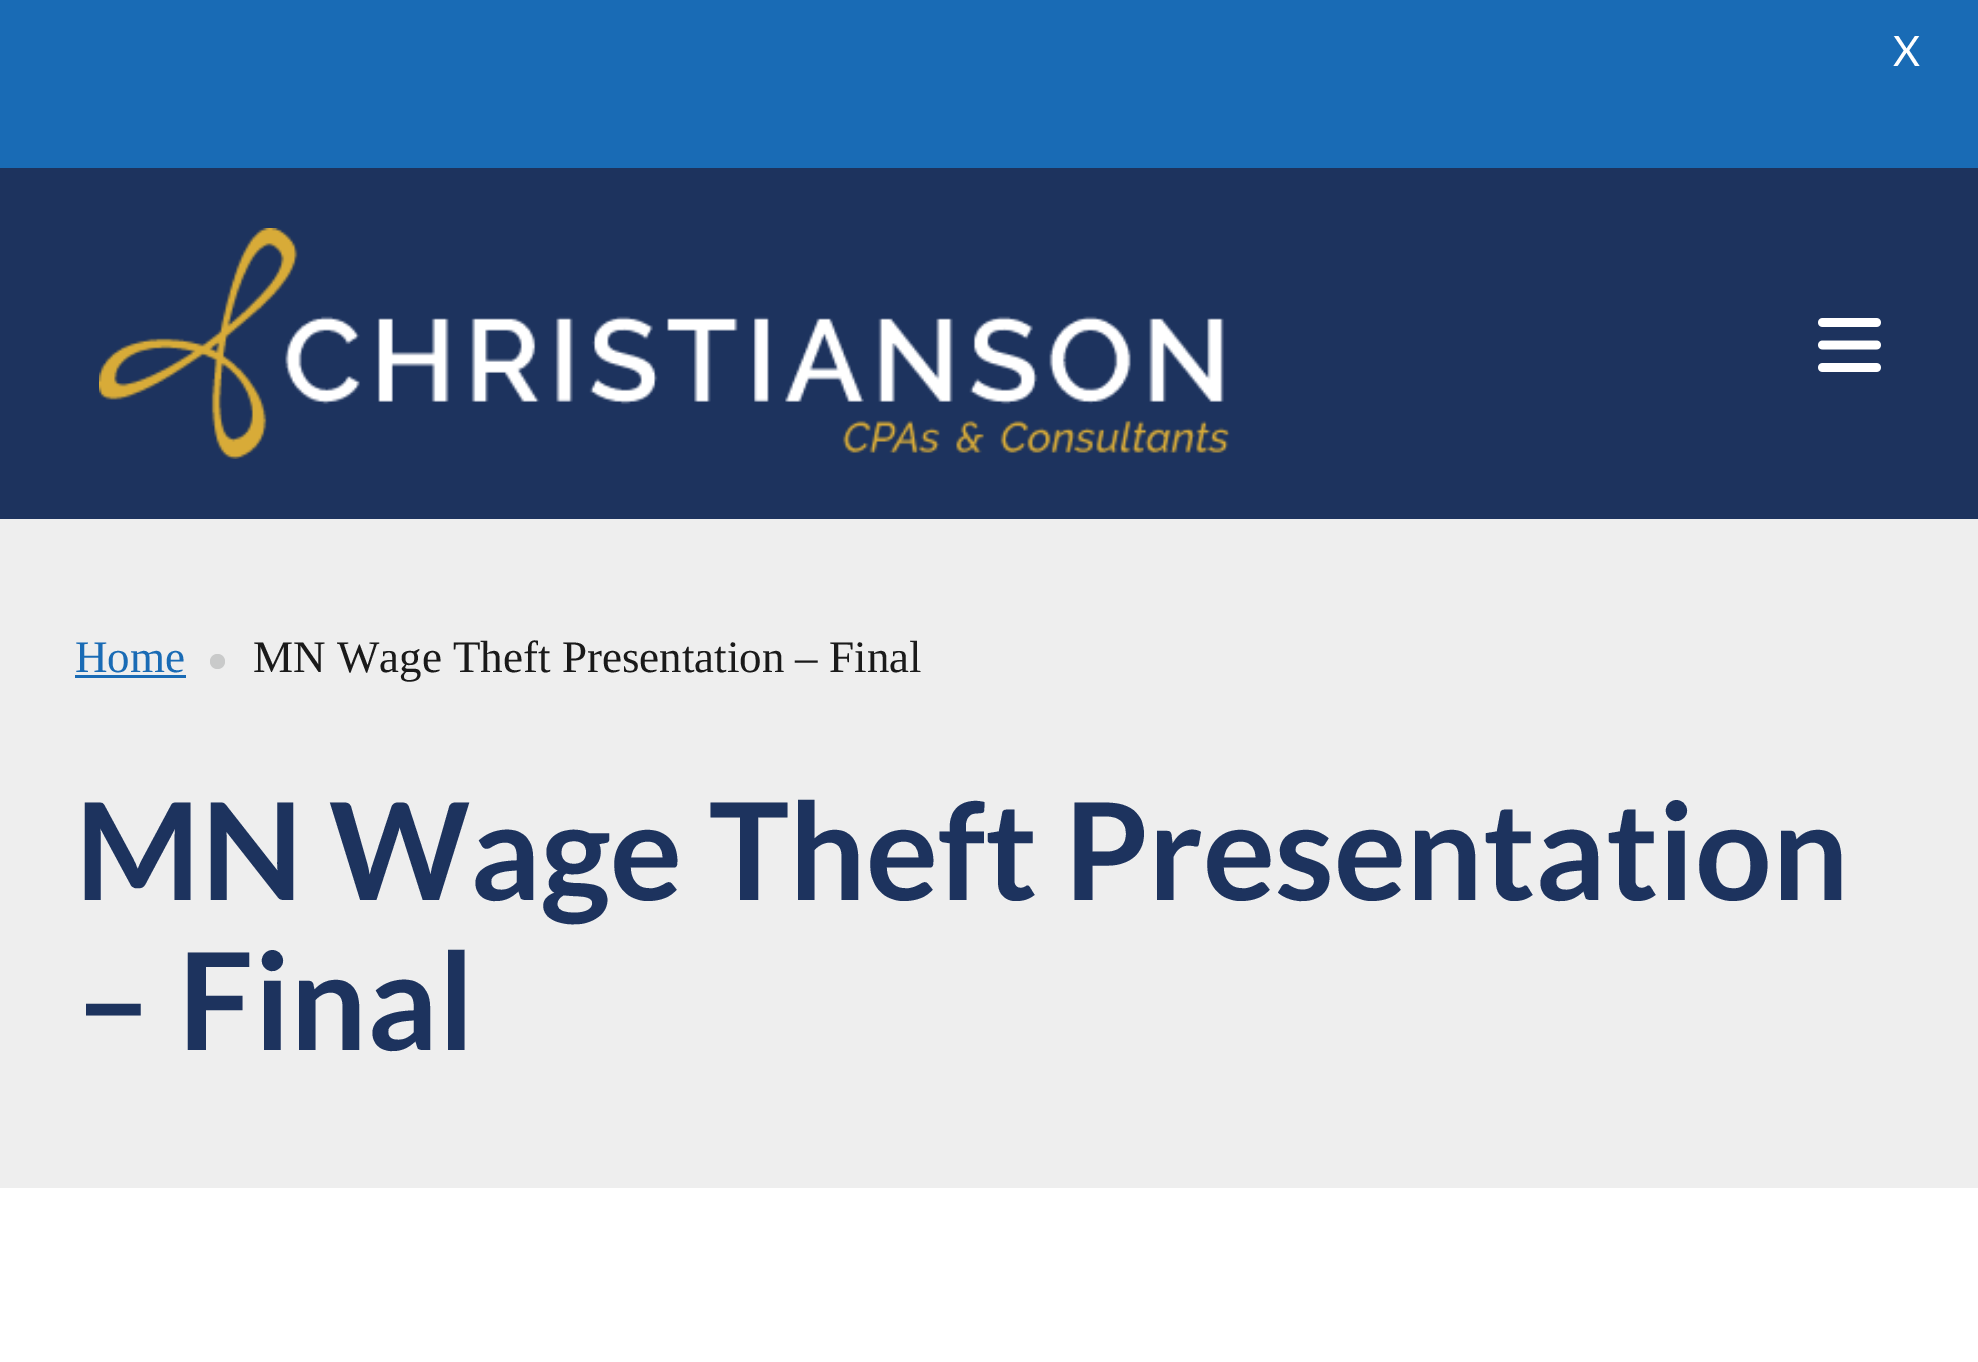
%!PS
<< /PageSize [1978 1362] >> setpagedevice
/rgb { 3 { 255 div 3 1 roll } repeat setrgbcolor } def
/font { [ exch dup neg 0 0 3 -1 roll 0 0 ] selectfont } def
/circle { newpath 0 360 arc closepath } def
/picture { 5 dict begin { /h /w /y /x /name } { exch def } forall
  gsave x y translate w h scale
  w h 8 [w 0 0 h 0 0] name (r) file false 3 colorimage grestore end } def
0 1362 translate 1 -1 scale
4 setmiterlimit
255 255 255 rgb
0 0 1978 1362 rectfill
25 107 181 rgb
0 0 1978 168 rectfill
29 51 94 rgb
0 168 1978 351 rectfill
(img/1.rgb) 99 228 1131 231 picture
(img/2.rgb) 1818 318 63 54 picture
238 238 238 rgb
0 519 1978 669 rectfill
25 107 181 rgb
75 675 111 3 rectfill
201 202 202 rgb
217.5 661.5 7.5 circle fill
/Lato-Regular 42 font
255 255 255 rgb
1893 66 moveto (X) show
/LiberationSerif-Regular 45 font
25 107 181 rgb
75 672 moveto (Home) show
26 26 26 rgb
253 672 moveto (MN Wage Theft Presentation – Final) show
/Lato-Bold 135 font
29 51 94 rgb
75 900 moveto (MN Wage Theft Presentation) show
75 1050 moveto (– Final) show
showpage
